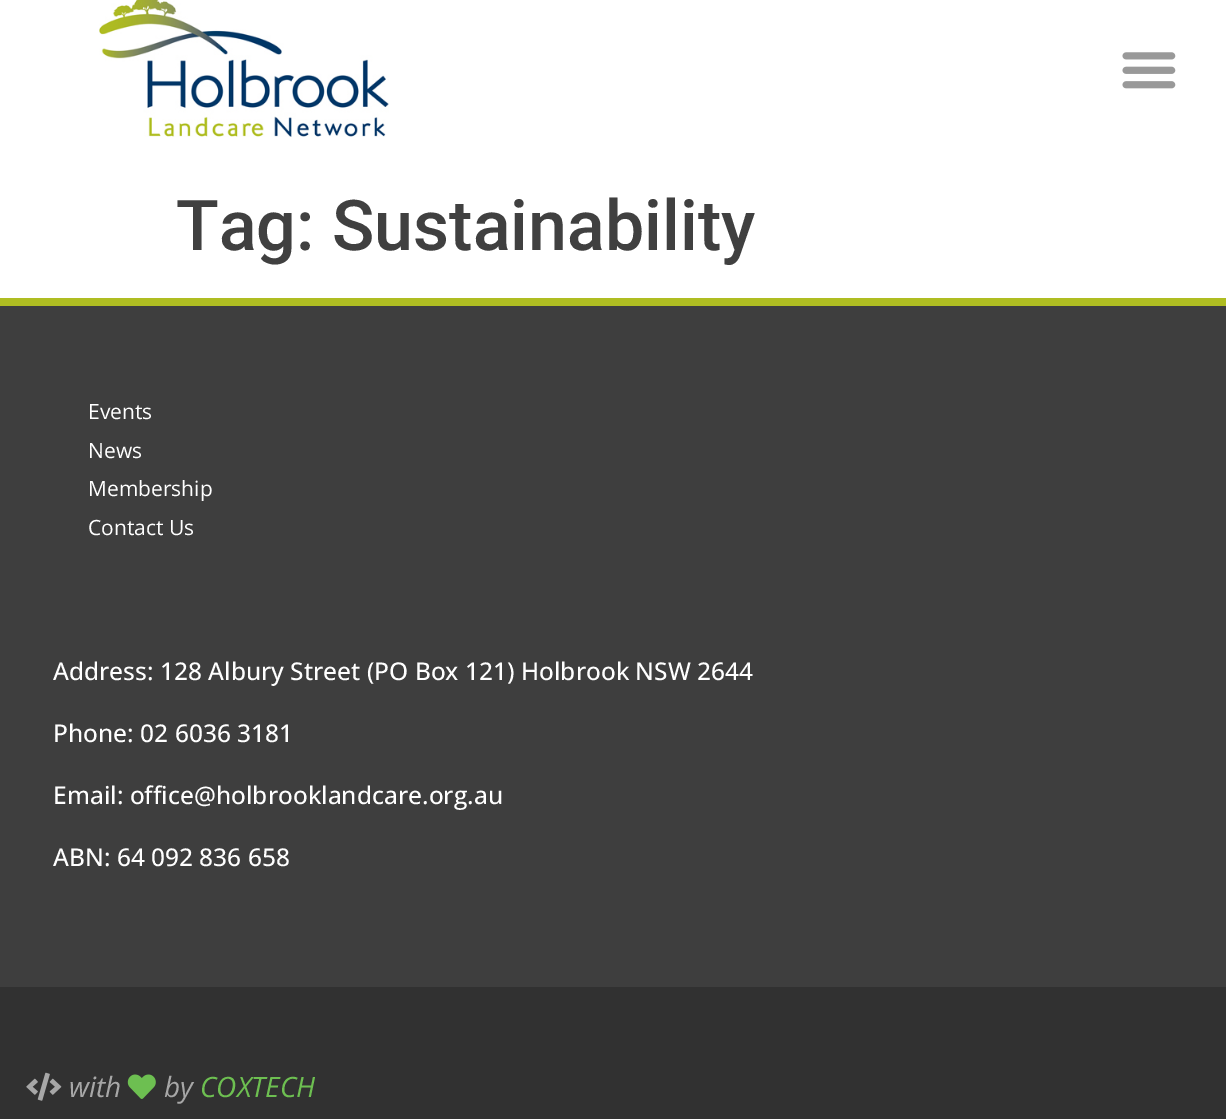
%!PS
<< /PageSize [1226 1119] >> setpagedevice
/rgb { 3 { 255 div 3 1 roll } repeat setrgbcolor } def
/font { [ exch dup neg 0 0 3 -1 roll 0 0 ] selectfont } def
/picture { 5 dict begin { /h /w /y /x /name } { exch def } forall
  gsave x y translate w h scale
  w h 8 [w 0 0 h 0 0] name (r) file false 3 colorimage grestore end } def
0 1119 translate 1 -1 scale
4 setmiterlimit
255 255 255 rgb
0 0 1226 1119 rectfill
(img/1.rgb) 99 0 290 137 picture
(img/2.rgb) 1122 52 54 37 picture
[
  [0 306 1226 681 62 62 62]
  [0 298 1226 8 175 189 34]
  [0 987 1226 132 49 49 49]
] { aload pop rgb rectfill } forall
(img/3.rgb) 26 1072 36 29 picture
(img/4.rgb) 127 1074 29 25 picture
/Roboto-Medium 70 font
64 64 64 rgb
176 250 moveto (Tag: Sustainability) show
/OpenSans-Regular 21 font
255 255 255 rgb
[
  [(Events) 88 419]
  [(News) 88 458]
  [(Membership) 88 496]
  [(Contact Us) 88 535]
] { aload pop moveto show } forall
/OpenSans-Medium 24.5 font
[
  [(Address: 128 Albury Street \(PO Box 121\) Holbrook NSW 2644) 53 680]
  [(Phone: 02 6036 3181) 53 742]
  [(Email: office@holbrooklandcare.org.au) 53 804]
  [(ABN: 64 092 836 658) 53 866]
] { aload pop moveto show } forall
/OpenSans-Italic 28 font
167 167 167 rgb
69 1097 moveto (with) show
164 1097 moveto (by) show
109 191 81 rgb
200 1097 moveto (COXTECH) show
showpage
